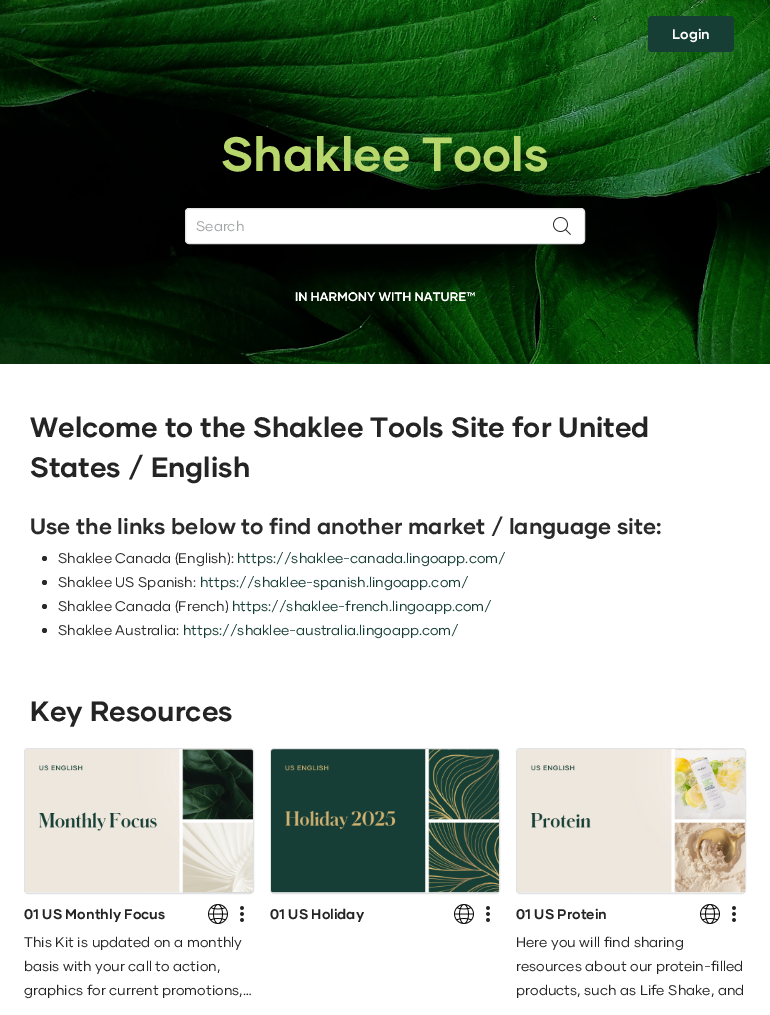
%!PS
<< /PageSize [770 1015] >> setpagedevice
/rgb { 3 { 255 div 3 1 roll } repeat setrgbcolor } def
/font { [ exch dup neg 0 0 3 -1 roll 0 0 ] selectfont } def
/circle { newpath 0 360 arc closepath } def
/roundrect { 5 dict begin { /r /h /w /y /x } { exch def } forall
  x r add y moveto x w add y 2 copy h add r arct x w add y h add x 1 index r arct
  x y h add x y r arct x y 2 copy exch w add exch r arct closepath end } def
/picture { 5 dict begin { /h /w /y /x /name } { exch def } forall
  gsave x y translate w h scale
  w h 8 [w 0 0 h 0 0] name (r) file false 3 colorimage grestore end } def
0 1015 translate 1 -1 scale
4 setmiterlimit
255 255 255 rgb
0 0 770 1015 rectfill
(img/1.rgb) 0 0 770 364 picture
22 62 53 rgb
648 16 86 36 4 roundrect fill
255 255 255 rgb
185.5 208.5 399 35 3.5 roundrect gsave fill grestore
225 226 228 rgb
stroke
(img/2.rgb) 553 217 18 18 picture
42 42 42 rgb
44.5 558.5 2.5 circle fill
44.5 582.5 2.5 circle fill
44.5 606.5 2.5 circle fill
44.5 630.5 2.5 circle fill
238 239 240 rgb
24.5 748.5 229 145 3.5 roundrect gsave fill grestore
225 226 228 rgb
stroke
(img/3.rgb) 25 749 228 144 picture
(img/4.rgb) 208 904 20 20 picture
(img/5.rgb) 240 906 4 16 picture
238 239 240 rgb
270.5 748.5 229 145 3.5 roundrect gsave fill grestore
225 226 228 rgb
stroke
(img/6.rgb) 271 749 228 144 picture
(img/4.rgb) 454 904 20 20 picture
(img/5.rgb) 486 906 4 16 picture
238 239 240 rgb
516.5 748.5 229 145 3.5 roundrect gsave fill grestore
225 226 228 rgb
stroke
(img/7.rgb) 517 749 228 144 picture
(img/4.rgb) 700 904 20 20 picture
(img/5.rgb) 732 906 4 16 picture
/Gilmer-Bold 14 font
255 255 255 rgb
672 39 moveto (Login) show
/Gilmer-Bold 48 font
183 215 108 rgb
221 171 moveto (Shaklee Tools) show
/Gilmer-Regular 14 font
163 164 166 rgb
196 231 moveto (Search) show
/Gilmer-Bold 28 font
36 36 37 rgb
30 437 moveto (Welcome to the Shaklee Tools Site for United) show
30 477 moveto (States / English) show
/Gilmer-Bold 22 font
42 42 42 rgb
30 534 moveto (Use the links below to find another market / language site:) show
/Gilmer-Regular 14 font
58 563 moveto (Shaklee Canada \(English\):) show
22 62 53 rgb
237 563 moveto (https://shaklee-canada.lingoapp.com/) show
42 42 42 rgb
58 587 moveto (Shaklee US Spanish:) show
22 62 53 rgb
200 587 moveto (https://shaklee-spanish.lingoapp.com/) show
42 42 42 rgb
58 611 moveto (Shaklee Canada \(French\)) show
22 62 53 rgb
232 611 moveto (https://shaklee-french.lingoapp.com/) show
42 42 42 rgb
58 635 moveto (Shaklee Australia:) show
22 62 53 rgb
183 635 moveto (https://shaklee-australia.lingoapp.com/) show
/Gilmer-Bold 28 font
36 36 37 rgb
30 721 moveto (Key Resources) show
/Gilmer-Bold 14 font
24 919 moveto (01 US Monthly Focus) show
/Gilmer-Regular 14 font
[
  [(This Kit is updated on a monthly) 24 947]
  [(basis with your call to action,) 24 971]
  [(graphics for current promotions,…) 24 995]
] { aload pop moveto show } forall
/Gilmer-Bold 14 font
270 919 moveto (01 US Holiday) show
516 919 moveto (01 US Protein) show
/Gilmer-Regular 14 font
[
  [(Here you will find sharing) 516 947]
  [(resources about our protein-filled) 516 971]
  [(products, such as Life Shake, and) 516 995]
] { aload pop moveto show } forall
showpage
